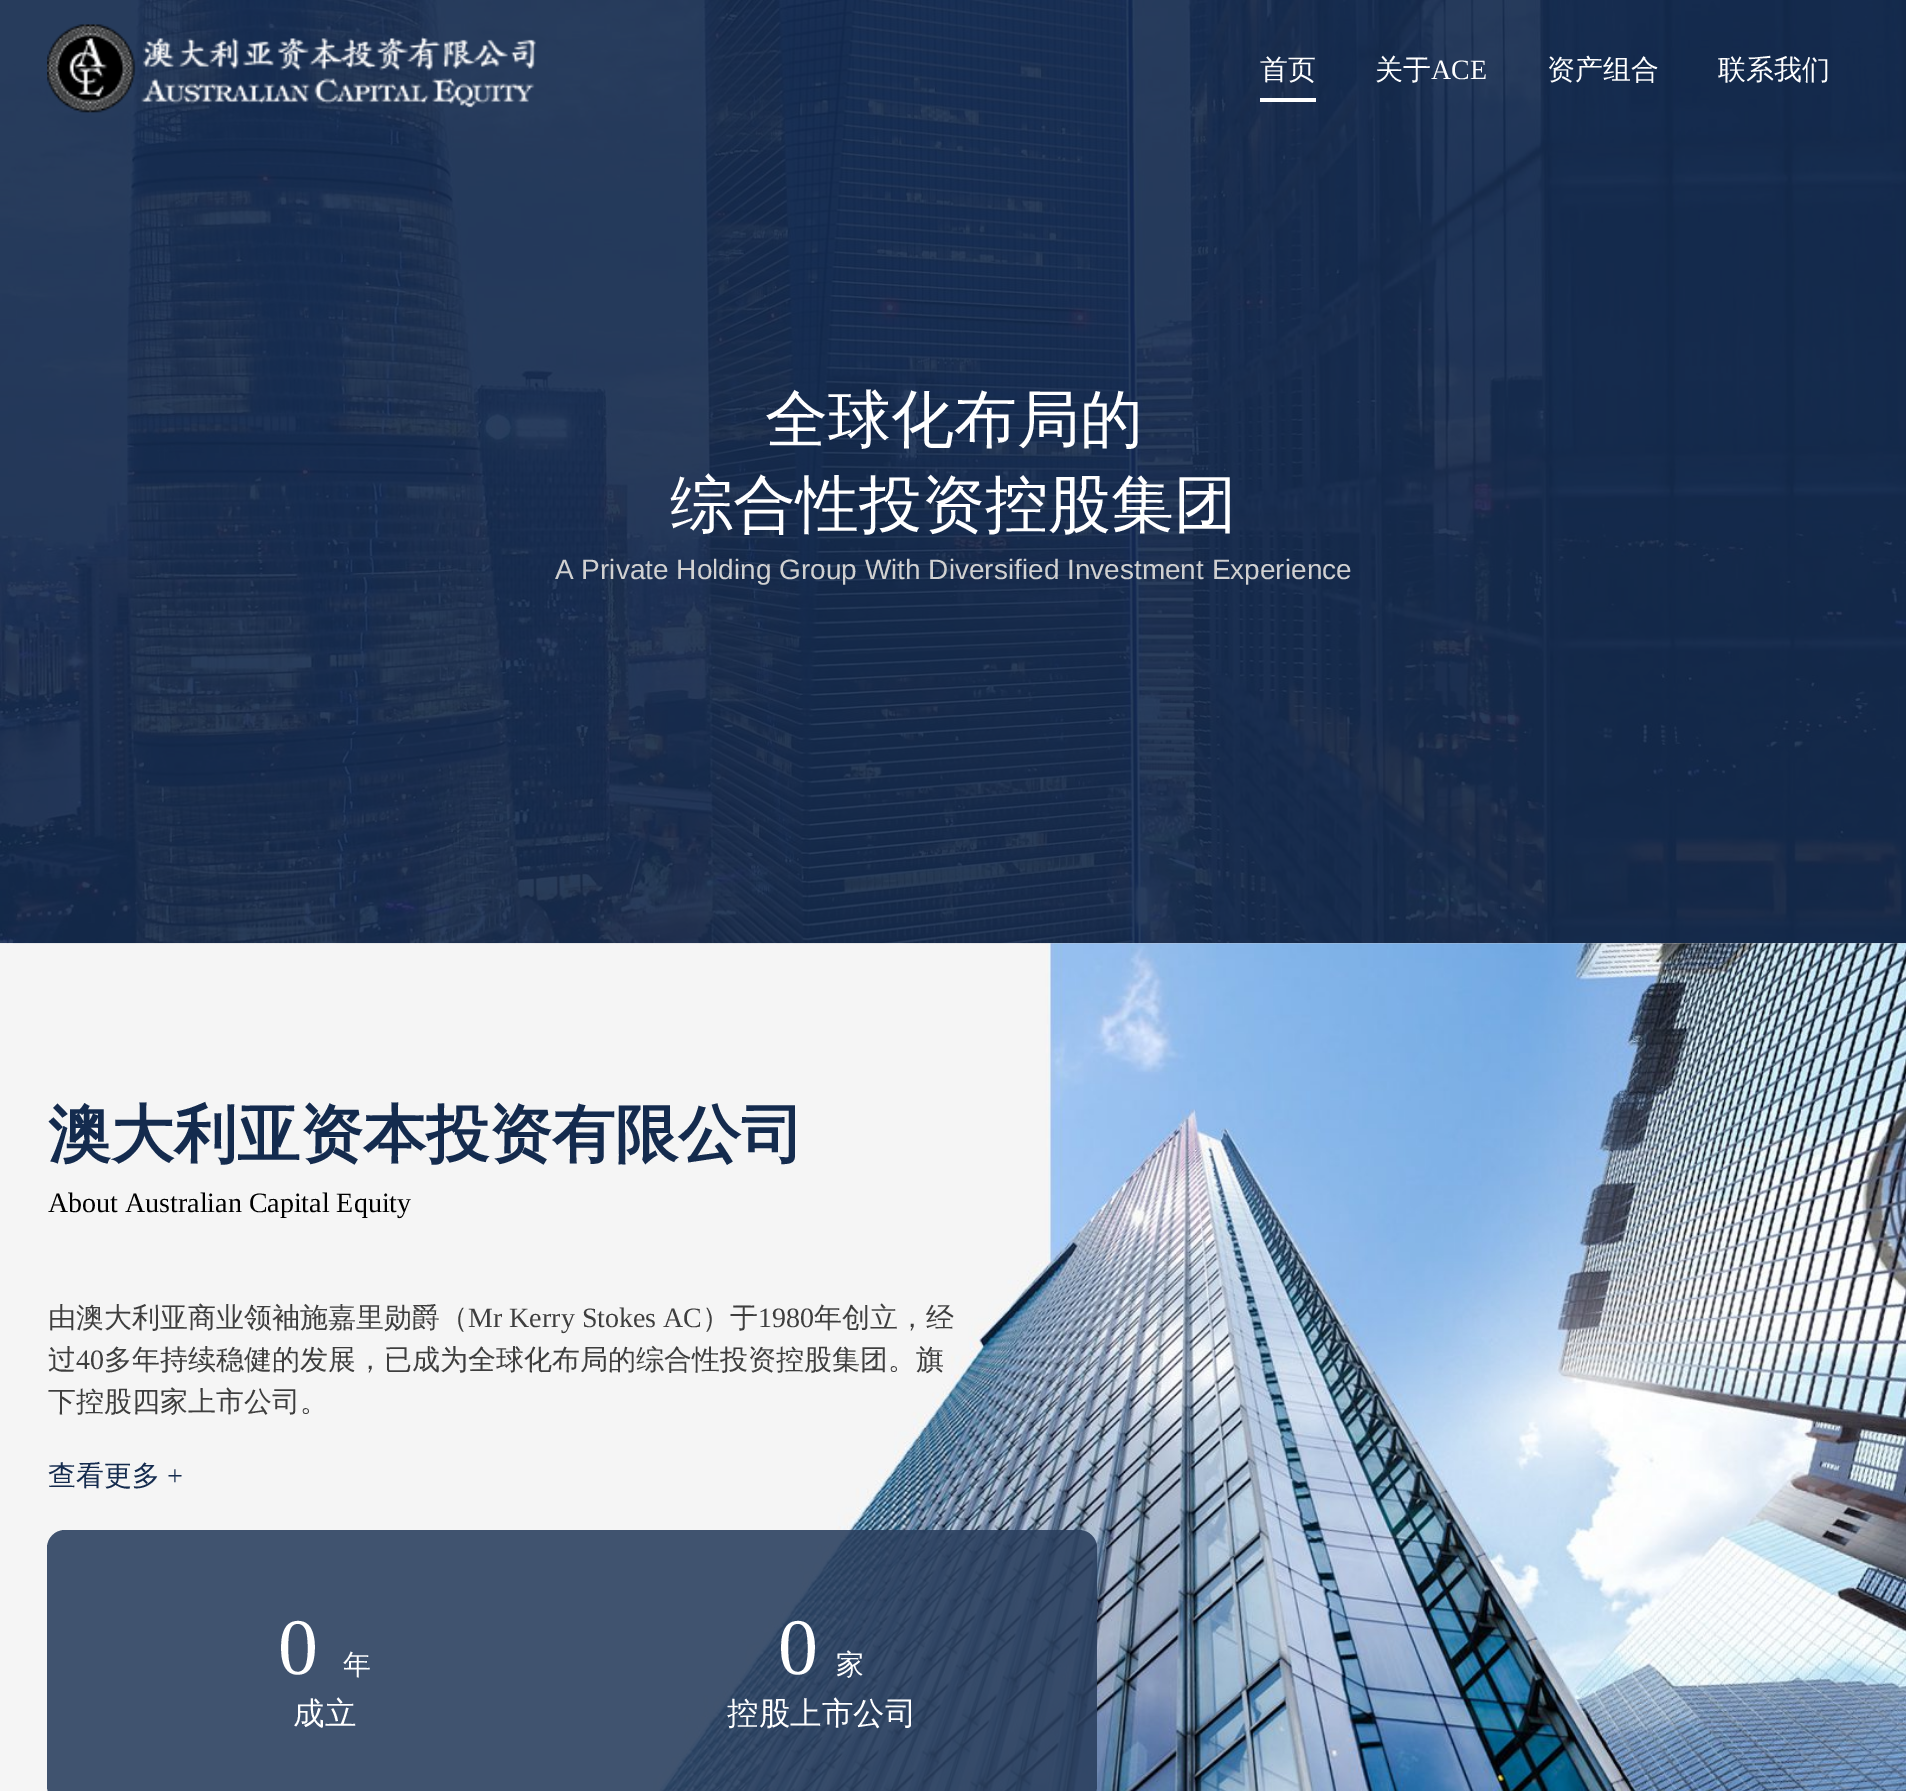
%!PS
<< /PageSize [1906 1791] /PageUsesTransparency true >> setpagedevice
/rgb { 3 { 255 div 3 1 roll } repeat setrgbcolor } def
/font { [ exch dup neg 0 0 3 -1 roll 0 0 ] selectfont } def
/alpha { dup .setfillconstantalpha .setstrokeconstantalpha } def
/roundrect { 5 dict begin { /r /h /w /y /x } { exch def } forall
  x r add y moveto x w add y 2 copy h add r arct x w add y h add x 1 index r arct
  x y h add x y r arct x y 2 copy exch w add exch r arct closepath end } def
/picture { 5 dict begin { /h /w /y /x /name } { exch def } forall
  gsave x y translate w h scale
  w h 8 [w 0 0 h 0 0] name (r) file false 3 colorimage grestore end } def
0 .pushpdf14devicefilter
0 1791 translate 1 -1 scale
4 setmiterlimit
245 245 245 rgb
0 0 1906 1791 rectfill
(img/3.rgb) 653 943 1253 848 picture
(img/2.rgb) 0 0 1906 944 picture
(img/1.rgb) 47 24 489 89 picture
255 255 255 rgb
1260 98 56 4 rectfill
0.89 alpha
42 63 94 rgb
47 1530 1050 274 18 roundrect fill
/WenQuanYiZenHei-Medium 28 font
1 alpha
255 255 255 rgb
1260 79 moveto (首页) show
1375 79 moveto (关于) show
/LiberationSerif-Regular 28 font
1431 79 moveto (ACE) show
/WenQuanYiZenHei-Medium 28 font
1547 79 moveto (资产组合) show
1718 79 moveto (联系我们) show
/WenQuanYiZenHei-Medium 63 font
765 441 moveto (全球化布局的) show
670 526 moveto (综合性投资控股集团) show
/LiberationSans-Regular 28 font
209 209 209 rgb
555 579 moveto (A Private Holding Group With Diversified Investment Experience) show
/WenQuanYiZenHei-Bold 63 font
20 43 78 rgb
48 1156 moveto (澳大利亚资本投资有限公司) show
/LiberationSerif-Regular 28 font
0 0 0 rgb
48 1212 moveto (About Australian Capital Equity) show
/WenQuanYiZenHei-Medium 28 font
62 62 62 rgb
48 1327 moveto (由澳大利亚商业领袖施嘉里勋爵（) show
/LiberationSerif-Regular 28 font
468 1327 moveto (Mr Kerry Stokes AC) show
/WenQuanYiZenHei-Medium 28 font
702 1327 moveto (）于) show
/LiberationSerif-Regular 28 font
758 1327 moveto (1980) show
/WenQuanYiZenHei-Medium 28 font
814 1327 moveto (年创立，经) show
48 1369 moveto (过) show
/LiberationSerif-Regular 28 font
76 1369 moveto (40) show
/WenQuanYiZenHei-Medium 28 font
104 1369 moveto (多年持续稳健的发展，已成为全球化布局的综合性投资控股集团。旗) show
48 1411 moveto (下控股四家上市公司。) show
20 43 78 rgb
48 1485 moveto (查看更多) show
/LiberationSerif-Regular 28 font
167 1485 moveto (+) show
/LiberationSerif-Regular 80 font
255 255 255 rgb
278 1674 moveto (0) show
/WenQuanYiZenHei-Medium 28 font
343 1674 moveto (年) show
/WenQuanYiZenHei-Medium 31.5 font
293 1724 moveto (成立) show
/LiberationSerif-Regular 80 font
778 1674 moveto (0) show
/WenQuanYiZenHei-Medium 28 font
836 1674 moveto (家) show
/WenQuanYiZenHei-Medium 31.5 font
727 1724 moveto (控股上市公司) show
.poppdf14devicefilter showpage
